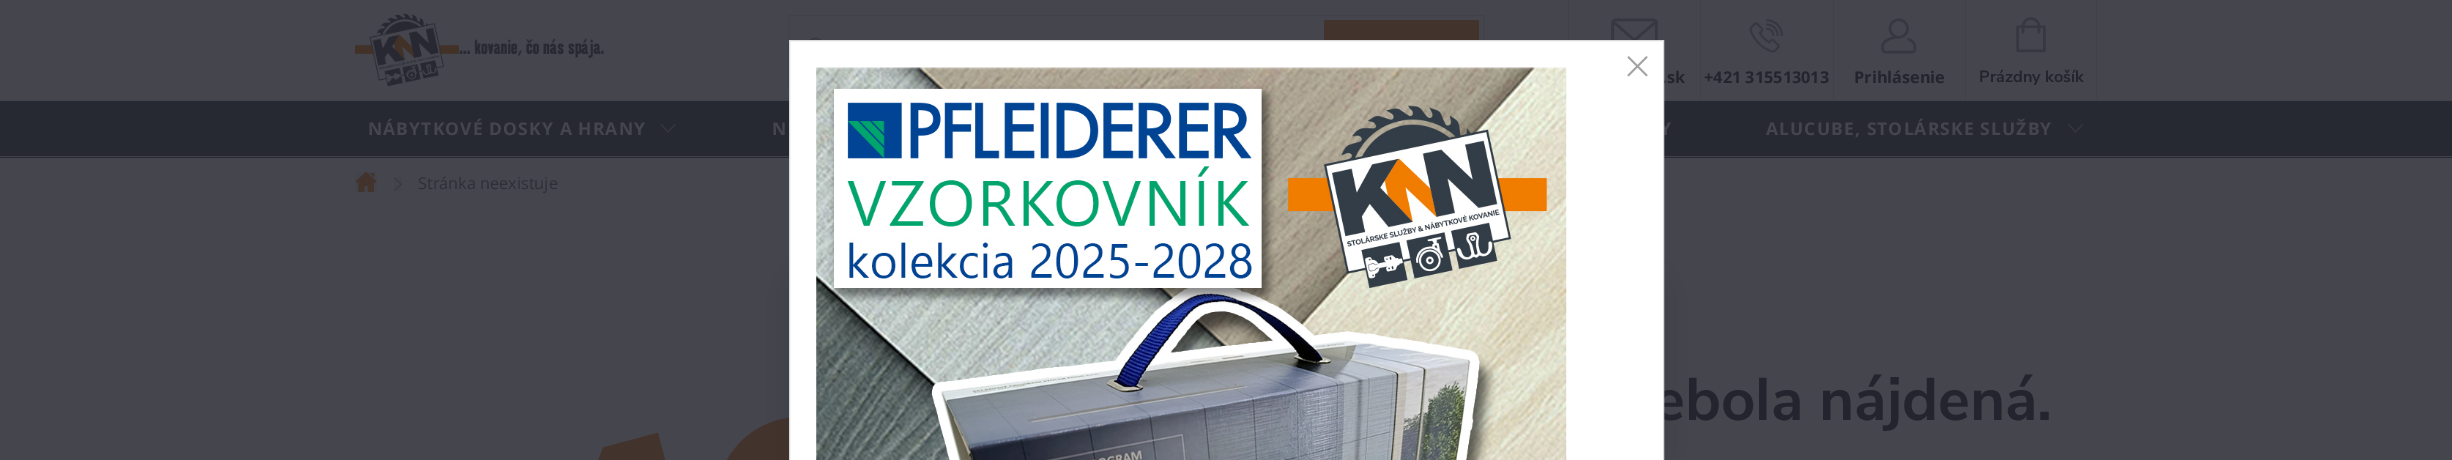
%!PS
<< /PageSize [2452 460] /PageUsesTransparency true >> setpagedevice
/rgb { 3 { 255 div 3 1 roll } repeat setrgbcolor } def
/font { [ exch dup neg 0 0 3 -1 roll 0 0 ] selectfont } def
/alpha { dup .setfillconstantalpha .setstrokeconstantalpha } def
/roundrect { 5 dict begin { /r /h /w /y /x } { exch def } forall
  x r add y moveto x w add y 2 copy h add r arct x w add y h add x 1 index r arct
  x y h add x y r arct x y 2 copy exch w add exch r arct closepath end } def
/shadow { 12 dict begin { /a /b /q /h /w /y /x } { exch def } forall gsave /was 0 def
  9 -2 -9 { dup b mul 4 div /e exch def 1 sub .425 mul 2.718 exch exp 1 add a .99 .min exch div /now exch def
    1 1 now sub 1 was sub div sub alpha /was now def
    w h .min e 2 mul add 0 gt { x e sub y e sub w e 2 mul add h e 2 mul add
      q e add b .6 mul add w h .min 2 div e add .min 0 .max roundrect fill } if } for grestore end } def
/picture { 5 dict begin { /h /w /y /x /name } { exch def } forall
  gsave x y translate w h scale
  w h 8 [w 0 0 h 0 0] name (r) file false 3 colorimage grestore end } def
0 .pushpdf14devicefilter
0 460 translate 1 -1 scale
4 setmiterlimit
69 69 77 rgb
0 0 2452 460 rectfill
(img/3.rgb) 355 13 250 74 picture
65 65 73 rgb
788.5 15.5 695 69 rectstroke
66 51 44 rgb
1324 20 155 20 rectfill
(img/4.rgb) 809 37 13 3 picture
65 65 73 rgb
1568 0 1 40 rectfill
(img/5.rgb) 1611 18 47 22 picture
1700 0 1 100 rectfill
(img/6.rgb) 1749 19 34 34 picture
1833 0 1 100 rectfill
(img/7.rgb) 1881 18 36 36 picture
2096 0 1 100 rectfill
1965 0 1 100 rectfill
(img/8.rgb) 2016 17 30 36 picture
38 40 50 rgb
0 101 2452 57 rectfill
(img/9.rgb) 660 123 16 10 picture
(img/10.rgb) 2068 123 15 10 picture
65 65 73 rgb
0 100 2452 1 rectfill
0 156 2452 1 rectfill
(img/11.rgb) 355 172 22 20 picture
(img/12.rgb) 394 177 8 14 picture
(img/13.rgb) 598 417 191 43 picture
35 34 48 rgb
808 285 837 175 10 19 0.5 shadow
/OpenSans-Bold 16.25 font
36 36 46 rgb
[
  [(.sk) 1662 83]
  [(+421 315513013) 1704 83]
  [(Prihlásenie) 1854 83]
] { aload pop moveto show } forall
/NunitoSans-Bold 16.25 font
1979 82 moveto (Prázdny košík) show
/OpenSans-Bold 17.5 font
69 69 77 rgb
368 135 moveto 1.1 0 (NÁBYTKOVÉ DOSKY A HRANY) ashow
772 135 moveto 1.1 0 (N) ashow
1660 135 moveto 1.1 0 (Y) ashow
1766 135 moveto 1.1 0 (ALUCUBE, STOLÁRSKE SLUŽBY) ashow
/OpenSans-Regular 16.25 font
46 46 56 rgb
418 189 moveto (Stránka neexistuje) show
/NunitoSans-Bold 60 font
36 36 46 rgb
1653 420 moveto (ebola nájdená.) show
255 255 255 rgb
789.5 40.5 moveto 1663.5 40.5 lineto 1663.5 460.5 lineto 789.5 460.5 lineto closepath gsave fill grestore
218 218 218 rgb
stroke
(img/2.rgb) 1627 56 21 21 picture
(img/1.rgb) 816 67 751 393 picture
.poppdf14devicefilter showpage
